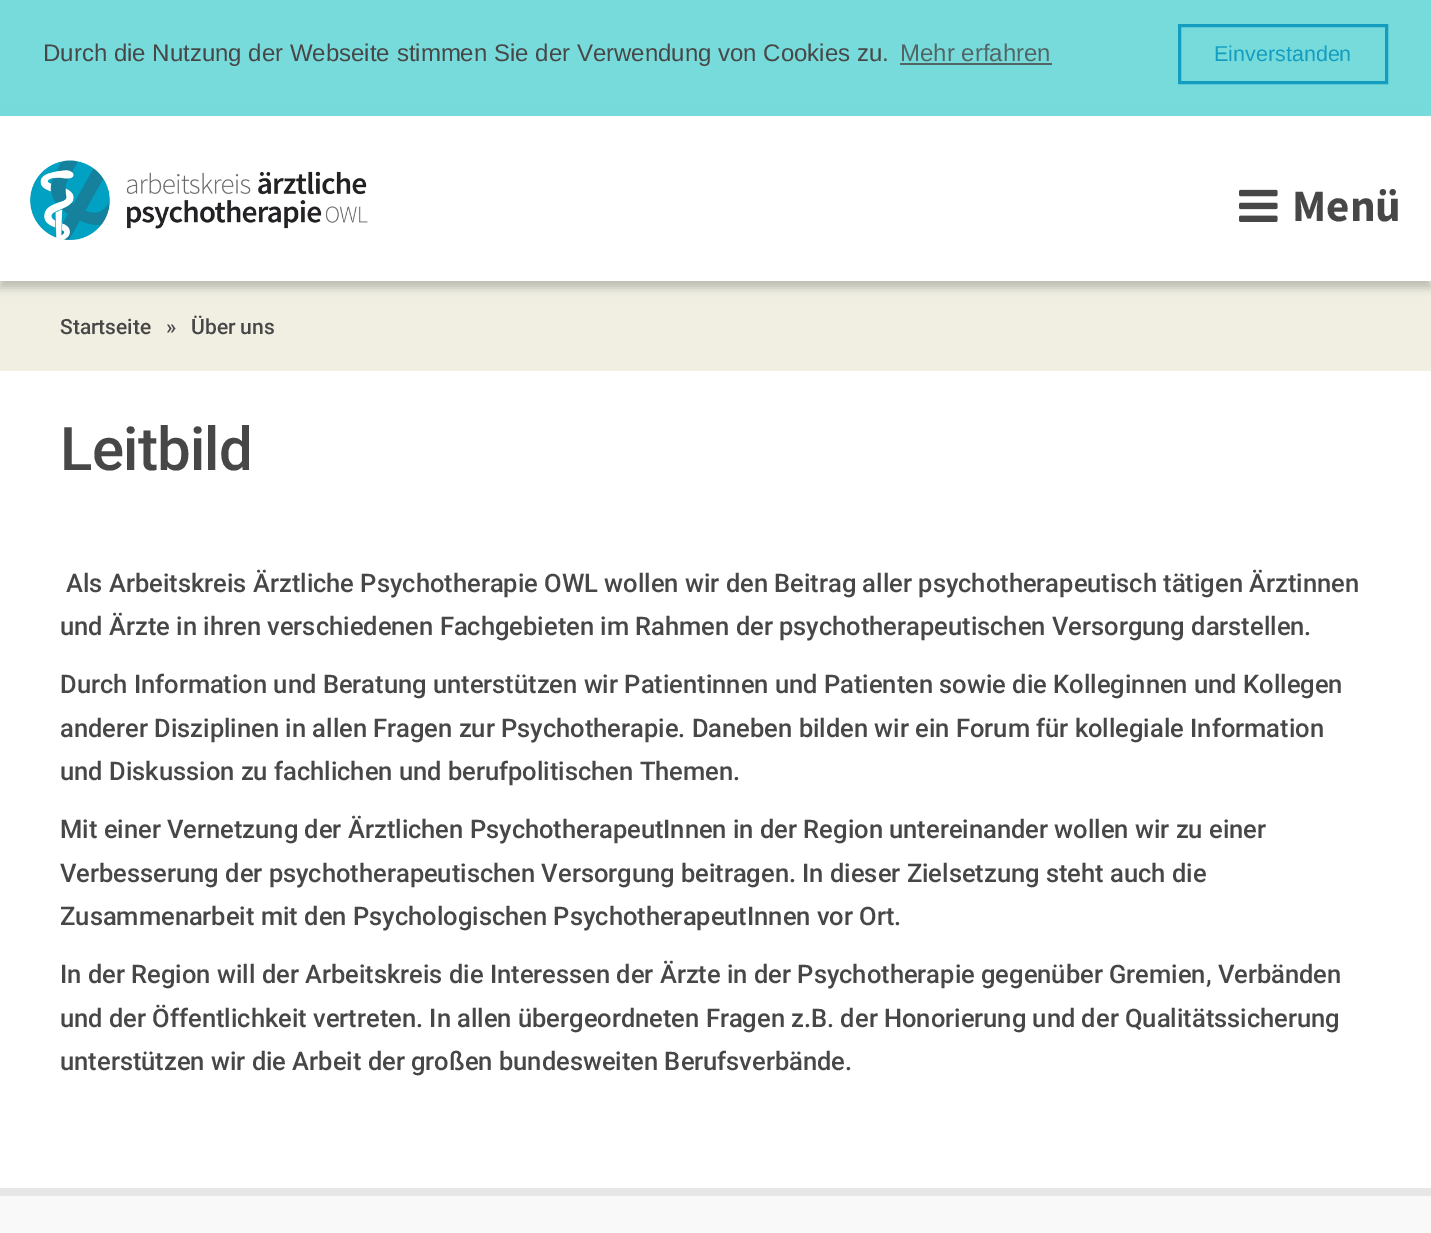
%!PS
<< /PageSize [1431 1233] /PageUsesTransparency true >> setpagedevice
/rgb { 3 { 255 div 3 1 roll } repeat setrgbcolor } def
/font { [ exch dup neg 0 0 3 -1 roll 0 0 ] selectfont } def
/alpha { dup .setfillconstantalpha .setstrokeconstantalpha } def
/roundrect { 5 dict begin { /r /h /w /y /x } { exch def } forall
  x r add y moveto x w add y 2 copy h add r arct x w add y h add x 1 index r arct
  x y h add x y r arct x y 2 copy exch w add exch r arct closepath end } def
/shadow { 12 dict begin { /a /b /q /h /w /y /x } { exch def } forall gsave /was 0 def
  9 -2 -9 { dup b mul 4 div /e exch def 1 sub .425 mul 2.718 exch exp 1 add a .99 .min exch div /now exch def
    1 1 now sub 1 was sub div sub alpha /was now def
    w h .min e 2 mul add 0 gt { x e sub y e sub w e 2 mul add h e 2 mul add
      q e add b .6 mul add w h .min 2 div e add .min 0 .max roundrect fill } if } for grestore end } def
/picture { 5 dict begin { /h /w /y /x /name } { exch def } forall
  gsave x y translate w h scale
  w h 8 [w 0 0 h 0 0] name (r) file false 3 colorimage grestore end } def
0 .pushpdf14devicefilter
0 1233 translate 1 -1 scale
4 setmiterlimit
255 255 255 rgb
0 0 1431 1233 rectfill
119 219 219 rgb
0 0 1431 108 rectfill
81 101 101 rgb
900 63 152 2 rectfill
19 157 192 rgb
3 setlinewidth
1179.5 25.5 207 57 rectstroke
240 239 226 rgb
0 281 1431 90 rectfill
gsave
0 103 moveto 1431 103 lineto 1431 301 lineto 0 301 lineto closepath 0 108 moveto 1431 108 lineto 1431 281 lineto 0 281 lineto closepath eoclip newpath
0 0 0 rgb
0 116 1431 172 0 4 0.2 shadow
grestore
119 219 219 rgb
0 108 1431 8 rectfill
(img/1.rgb) 30 160 338 80 picture
(img/2.rgb) 1239 189 39 33 picture
249 249 249 rgb
0 1196 1431 37 rectfill
231 231 231 rgb
0 1188 1431 8 rectfill
/LiberationSans-Regular 24 font
71 71 71 rgb
43 61 moveto (Durch die Nutzung der Webseite stimmen Sie der Verwendung von Cookies zu.) show
81 101 101 rgb
900 61 moveto (Mehr erfahren) show
/LiberationSans-Regular 21.5 font
19 157 192 rgb
1214 61 moveto (Einverstanden) show
/SourceSansPro-Bold 45 font
71 71 71 rgb
1292 221 moveto (Menü) show
/Roboto-Medium 21 font
[
  [(Startseite) 60 334]
  [(») 166 334]
  [(Über uns) 191 334]
] { aload pop moveto show } forall
/Roboto-Medium 60 font
60 470 moveto -0.75 0 (Leitbild) ashow
/Roboto-Medium 25.5 font
[
  [(Als Arbeitskreis Ärztliche Psychotherapie OWL wollen wir den Beitrag aller psychotherapeutisch tätigen Ärztinnen) 66 592]
  [(und Ärzte in ihren verschiedenen Fachgebieten im Rahmen der psychotherapeutischen Versorgung darstellen.) 60 635]
  [(Durch Information und Beratung unterstützen wir Patientinnen und Patienten sowie die Kolleginnen und Kollegen) 60 693]
  [(anderer Disziplinen in allen Fragen zur Psychotherapie. Daneben bilden wir ein Forum für kollegiale Information) 60 737]
  [(und Diskussion zu fachlichen und berufpolitischen Themen.) 60 780]
  [(Mit einer Vernetzung der Ärztlichen PsychotherapeutInnen in der Region untereinander wollen wir zu einer) 60 838]
  [(Verbesserung der psychotherapeutischen Versorgung beitragen. In dieser Zielsetzung steht auch die) 60 882]
  [(Zusammenarbeit mit den Psychologischen PsychotherapeutInnen vor Ort.) 60 925]
  [(In der Region will der Arbeitskreis die Interessen der Ärzte in der Psychotherapie gegenüber Gremien, Verbänden) 60 983]
  [(und der Öffentlichkeit vertreten. In allen übergeordneten Fragen z.B. der Honorierung und der Qualitätssicherung) 60 1027]
  [(unterstützen wir die Arbeit der großen bundesweiten Berufsverbände.) 60 1070]
] { aload pop moveto show } forall
.poppdf14devicefilter showpage
